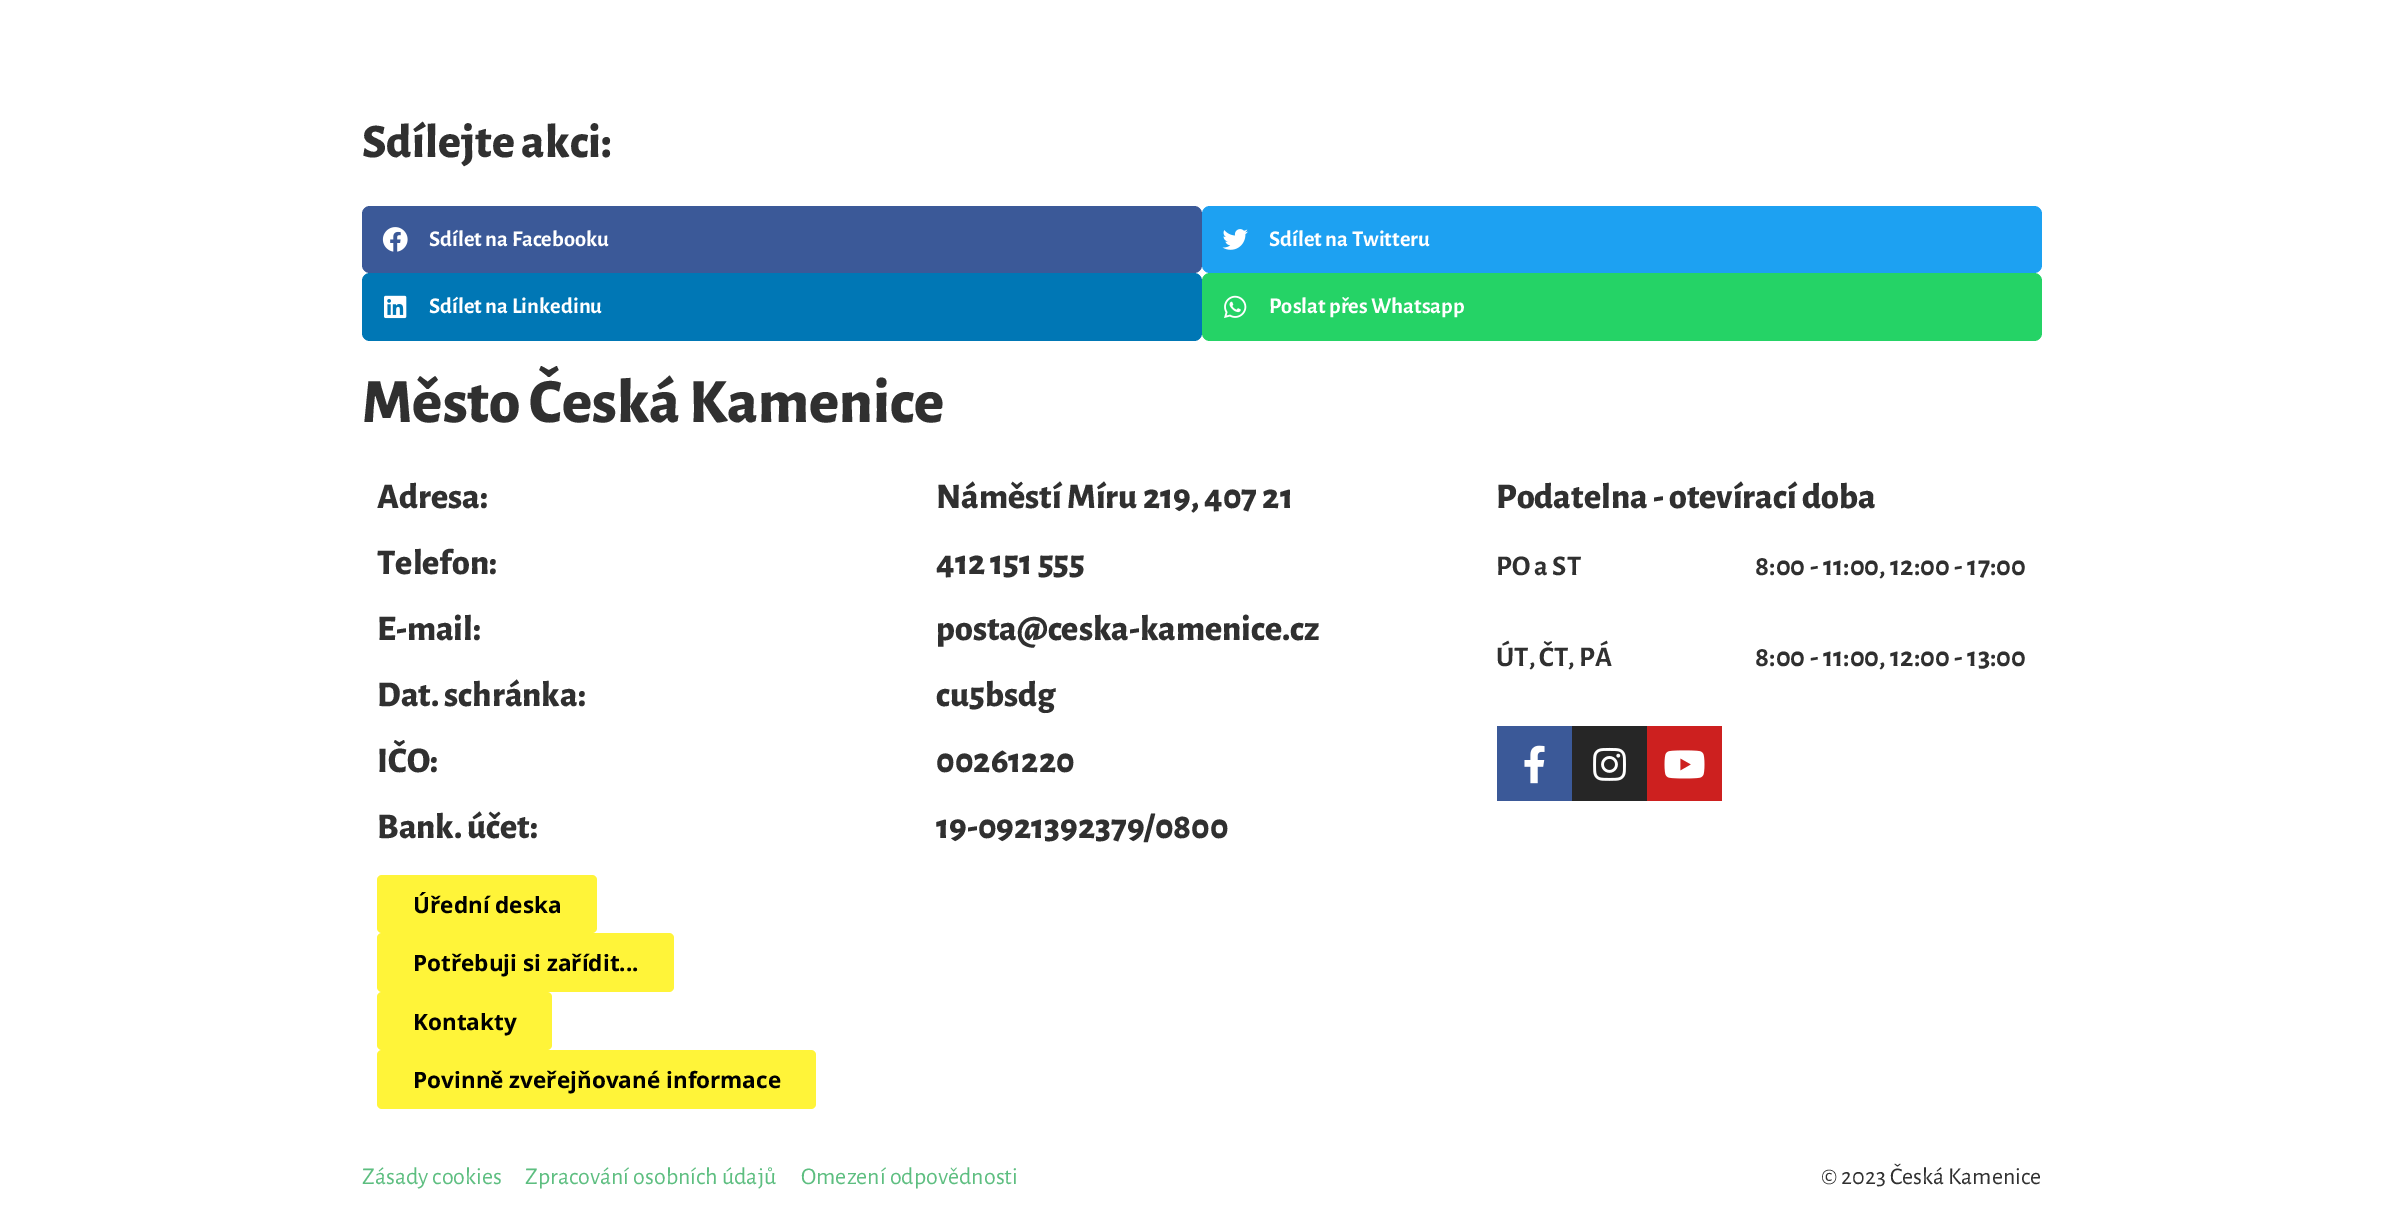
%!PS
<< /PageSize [2402 1215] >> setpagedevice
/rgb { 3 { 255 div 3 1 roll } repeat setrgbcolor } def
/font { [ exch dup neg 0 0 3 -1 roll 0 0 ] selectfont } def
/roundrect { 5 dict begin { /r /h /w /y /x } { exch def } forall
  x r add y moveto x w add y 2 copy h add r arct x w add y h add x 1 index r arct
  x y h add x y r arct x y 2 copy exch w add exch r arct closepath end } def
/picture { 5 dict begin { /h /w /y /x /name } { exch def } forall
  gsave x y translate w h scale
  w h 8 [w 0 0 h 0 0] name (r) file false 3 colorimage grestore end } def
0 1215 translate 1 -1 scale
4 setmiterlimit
255 255 255 rgb
0 0 2402 1215 rectfill
59 89 152 rgb
362 206 840 67 8 roundrect fill
(img/1.rgb) 382 227 26 25 picture
29 161 242 rgb
1202 206 840 67 8 roundrect fill
(img/2.rgb) 1222 229 26 21 picture
0 119 181 rgb
362 273 840 68 8 roundrect fill
(img/3.rgb) 384 295 23 24 picture
37 211 102 rgb
1202 273 840 68 8 roundrect fill
(img/4.rgb) 1224 295 23 23 picture
59 89 152 rgb
1497 726 75 75 rectfill
(img/5.rgb) 1524 745 21 39 picture
38 38 38 rgb
1572 726 75 75 rectfill
(img/6.rgb) 1593 747 33 34 picture
205 32 31 rgb
1647 726 75 75 rectfill
(img/7.rgb) 1664 750 41 29 picture
255 244 57 rgb
377 875 220 58 5 roundrect fill
377 933 297 59 5 roundrect fill
377 992 175 58 5 roundrect fill
377 1050 439 59 5 roundrect fill
/AlegreyaSans-ExtraBold 48 font
48 48 48 rgb
362 157 moveto (Sdílejte akci:) show
/AlegreyaSans-Bold 22.5 font
255 255 255 rgb
[
  [(Sdílet na Facebooku) 429 246]
  [(Sdílet na Twitteru) 1269 246]
  [(Sdílet na Linkedinu) 429 313]
  [(Poslat přes Whatsapp) 1269 313]
] { aload pop moveto show } forall
/AlegreyaSans-ExtraBold 63 font
48 48 48 rgb
362 422 moveto (Město Česká Kamenice) show
/AlegreyaSans-ExtraBold 36 font
[
  [(Adresa:) 377 508]
  [(Telefon:) 377 574]
  [(E-mail:) 377 640]
  [(Dat. schránka:) 377 706]
  [(IČO:) 377 772]
  [(Bank. účet:) 377 838]
  [(Náměstí Míru 219, 407 21) 936 508]
  [(412 151 555) 936 574]
  [(posta@ceska-kamenice.cz) 936 640]
  [(cu5bsdg) 936 706]
  [(00261220) 936 772]
  [(19-0921392379/0800) 936 838]
  [(Podatelna - otevírací doba) 1496 508]
] { aload pop moveto show } forall
/AlegreyaSans-Bold 28.5 font
[
  [(PO a ST) 1496 575]
  [(8:00 - 11:00, 12:00 - 17:00) 1755 575]
  [(ÚT, ČT, PÁ) 1496 666]
  [(8:00 - 11:00, 12:00 - 13:00) 1755 666]
] { aload pop moveto show } forall
/OpenSans-Bold 22.5 font
0 0 0 rgb
[
  [(Úřední deska) 413 913]
  [(Potřebuji si zařídit...) 413 971]
  [(Kontakty) 413 1030]
  [(Povinně zveřejňované informace) 413 1088]
] { aload pop moveto show } forall
/AlegreyaSans-Regular 24 font
93 190 128 rgb
[
  [(Zásady cookies) 362 1184]
  [(Zpracování osobních údajů) 525 1184]
  [(Omezení odpovědnosti) 801 1184]
] { aload pop moveto show } forall
48 48 48 rgb
1821 1184 moveto (© 2023 Česká Kamenice) show
showpage
